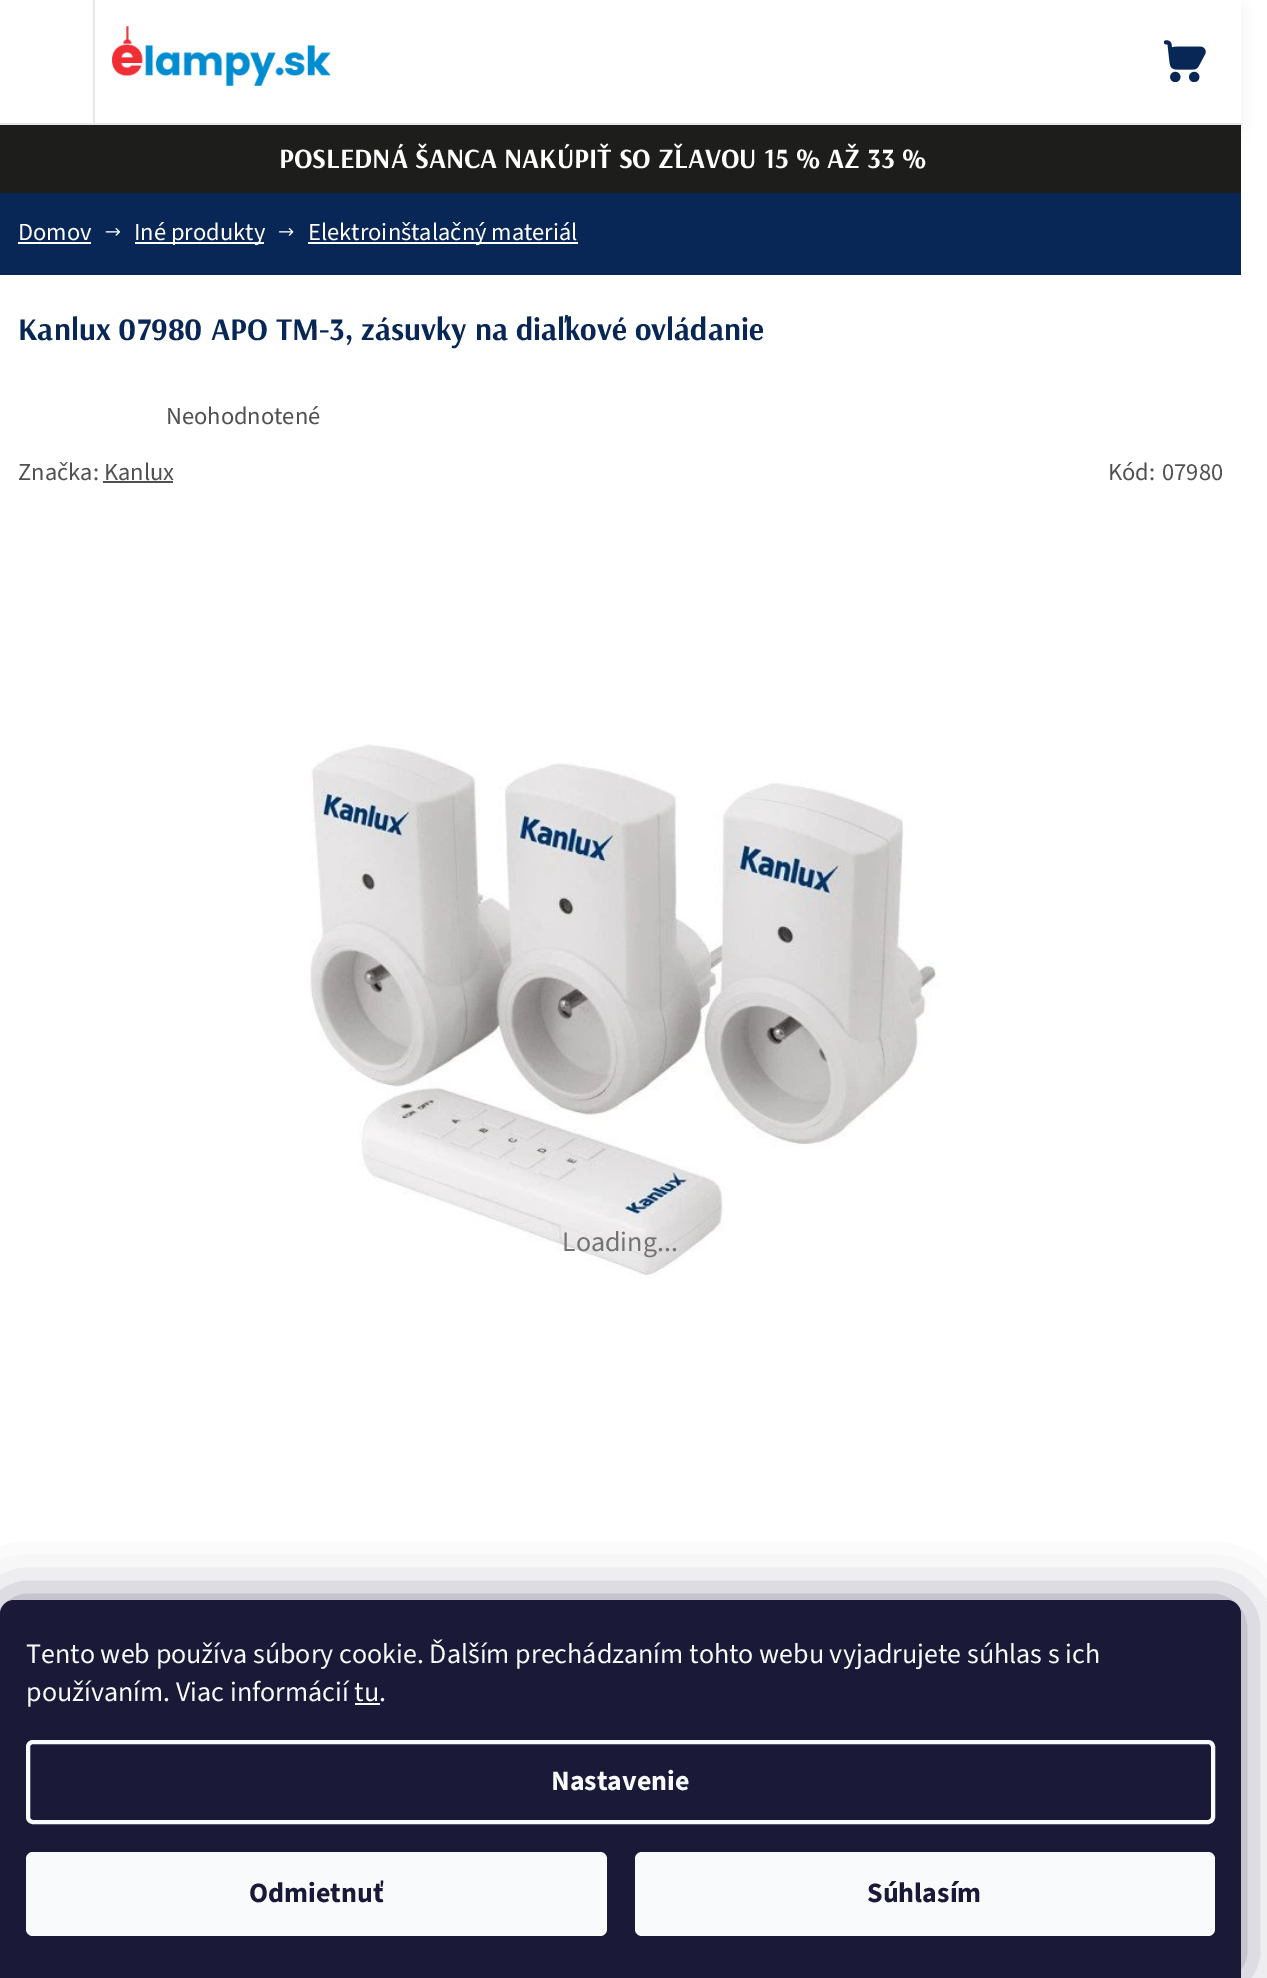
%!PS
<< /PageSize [1267 1978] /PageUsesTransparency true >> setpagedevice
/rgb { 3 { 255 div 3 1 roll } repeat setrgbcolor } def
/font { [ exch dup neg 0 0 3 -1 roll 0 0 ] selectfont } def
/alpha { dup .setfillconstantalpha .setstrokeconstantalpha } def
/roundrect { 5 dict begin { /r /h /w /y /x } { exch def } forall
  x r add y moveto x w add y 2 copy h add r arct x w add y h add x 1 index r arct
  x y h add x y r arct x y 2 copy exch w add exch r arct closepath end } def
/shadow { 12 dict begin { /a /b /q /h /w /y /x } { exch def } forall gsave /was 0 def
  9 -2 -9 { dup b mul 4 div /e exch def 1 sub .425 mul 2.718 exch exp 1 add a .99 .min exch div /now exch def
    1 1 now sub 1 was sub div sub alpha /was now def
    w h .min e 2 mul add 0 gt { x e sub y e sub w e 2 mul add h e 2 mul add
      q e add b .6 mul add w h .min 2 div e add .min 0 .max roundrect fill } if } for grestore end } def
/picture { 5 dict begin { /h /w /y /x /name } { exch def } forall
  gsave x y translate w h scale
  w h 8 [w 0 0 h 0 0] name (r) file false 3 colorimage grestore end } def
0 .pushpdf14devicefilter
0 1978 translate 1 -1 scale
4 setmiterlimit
255 255 255 rgb
0 0 1267 1978 rectfill
29 29 27 rgb
0 125 1241 68 rectfill
0 0 0 rgb
0 7 1241 124 0 9 0.05 shadow
[
  [0 0 1241 123 255 255 255]
  [0 123 1241 2 231 231 231]
  [93 0 2 123 231 231 231]
] { aload pop rgb rectfill } forall
(img/1.rgb) 1164 40 42 42 picture
(img/2.rgb) 112 26 219 60 picture
8 39 86 rgb
0 193 1223 82 rectfill
255 255 255 rgb
18 242 73 2 rectfill
(img/3.rgb) 105 228 15 8 picture
135 242 129 2 rectfill
(img/4.rgb) 278 228 16 8 picture
308 242 270 2 rectfill
gsave
0 0 1241 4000 rectclip
8 39 86 rgb
18 275 moveto 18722 275 lineto 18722 193 lineto 1223 193 lineto 1223 275 lineto closepath fill
grestore
80 80 80 rgb
103 481 70 2 rectfill
(img/5.rgb) 310 744 631 535 picture
27 25 57 rgb
0 1600 1241 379 14 26 0.5 shadow
26 25 55 rgb
14 1600 moveto 1227 1600 lineto 1234.5 1600 1241 1606.5 1241 1614 curveto 1241 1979 lineto 0 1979 lineto 0 1614 lineto 0 1606.5 6.5 1600 14 1600 curveto closepath fill
248 250 251 rgb
355 1703 25 2 rectfill
4 setlinewidth
28 1742 1185 80 5 roundrect stroke
26 1852 581 84 7 roundrect fill
635 1852 580 84 7 roundrect fill
/Arsenal-Bold 28 font
255 255 255 rgb
279 168 moveto (POSLEDNÁ ŠANCA NAKÚPIŤ SO ZĽAVOU 15 % AŽ 33 %) show
/SourceSans3-Regular 24.5 font
[
  [(Domov) 18 240]
  [(Iné produkty) 134 240]
  [(Elektroinštalačný materiál) 308 240]
] { aload pop moveto show } forall
/Arsenal-Bold 31.5 font
8 39 86 rgb
18 340 moveto (Kanlux 07980 APO TM-3, zásuvky na diaľkové ovládanie) show
/SourceSans3-Regular 24.5 font
80 80 80 rgb
[
  [(Neohodnotené) 166 424]
  [(Značka: Kanlux) 18 480]
  [(Kód:) 1108 480]
  [(07980) 1162 480]
] { aload pop moveto show } forall
/SourceSans3-Regular 28 font
116 115 115 rgb
562 1251 moveto (Loading...) show
248 250 251 rgb
26 1663 moveto (Tento web používa súbory cookie. Ďalším prechádzaním tohto webu vyjadrujete súhlas s ich) show
26 1701 moveto (používaním. Viac informácií tu.) show
/SourceSans3-Bold 28 font
551 1790 moveto (Nastavenie) show
26 25 55 rgb
249 1902 moveto (Odmietnuť) show
867 1902 moveto (Súhlasím) show
.poppdf14devicefilter showpage
